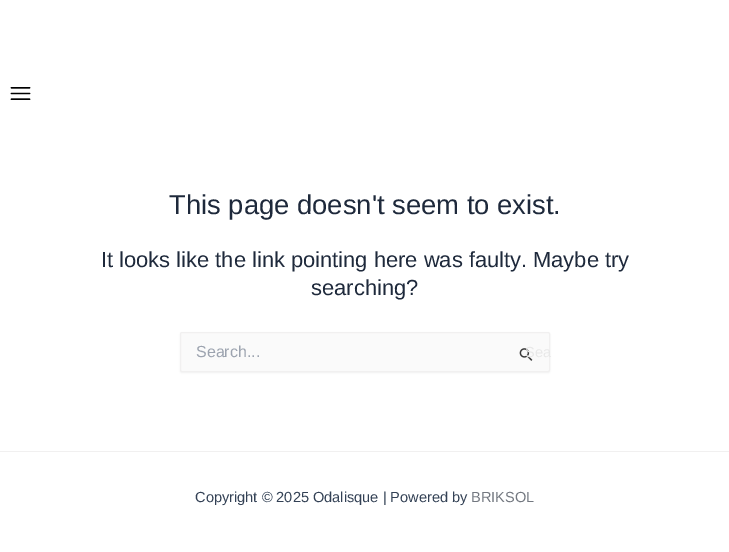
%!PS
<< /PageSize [729 552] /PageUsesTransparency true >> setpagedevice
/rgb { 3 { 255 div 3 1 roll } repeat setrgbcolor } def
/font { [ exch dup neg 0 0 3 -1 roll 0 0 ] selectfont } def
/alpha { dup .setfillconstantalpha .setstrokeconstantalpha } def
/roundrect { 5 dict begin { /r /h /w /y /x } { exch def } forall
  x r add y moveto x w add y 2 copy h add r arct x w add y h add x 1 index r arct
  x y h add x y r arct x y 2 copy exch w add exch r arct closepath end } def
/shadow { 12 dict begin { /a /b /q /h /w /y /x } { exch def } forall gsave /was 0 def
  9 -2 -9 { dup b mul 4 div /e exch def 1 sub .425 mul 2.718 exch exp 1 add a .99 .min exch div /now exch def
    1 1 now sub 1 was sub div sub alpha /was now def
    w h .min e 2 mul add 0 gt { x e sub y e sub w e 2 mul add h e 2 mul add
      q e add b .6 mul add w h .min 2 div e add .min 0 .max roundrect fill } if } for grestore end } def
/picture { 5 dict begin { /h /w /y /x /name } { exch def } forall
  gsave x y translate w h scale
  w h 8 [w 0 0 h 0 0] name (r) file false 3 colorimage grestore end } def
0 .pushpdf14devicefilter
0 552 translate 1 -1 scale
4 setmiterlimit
255 255 255 rgb
0 0 729 552 rectfill
(img/1.rgb) 10 87 21 13 picture
0 0 0 rgb
180 333 370 40 2 1 0.05 shadow
250 250 250 rgb
180.5 332.5 369 39 1.5 roundrect gsave fill grestore
241 240 240 rgb
stroke
(img/2.rgb) 519 348 14 13 picture
0 451 729 1 rectfill
/LiberationSans-Regular 27.4 font
30 41 59 rgb
169 214 moveto (This page doesn't seem to exist.) show
/LiberationSans-Regular 21.9 font
101 267 moveto (It looks like the link pointing here was faulty. Maybe try) show
311 295 moveto (searching?) show
/LiberationSans-Regular 16 font
156 163 175 rgb
196 357 moveto (Search...) show
/LiberationSans-Regular 14.6 font
232 232 232 rgb
525 357 moveto (Sea) show
51 65 85 rgb
195 502 moveto (Copyright © 2025 Odalisque | Powered by) show
115 120 128 rgb
471 502 moveto (BRIKSOL) show
.poppdf14devicefilter showpage
